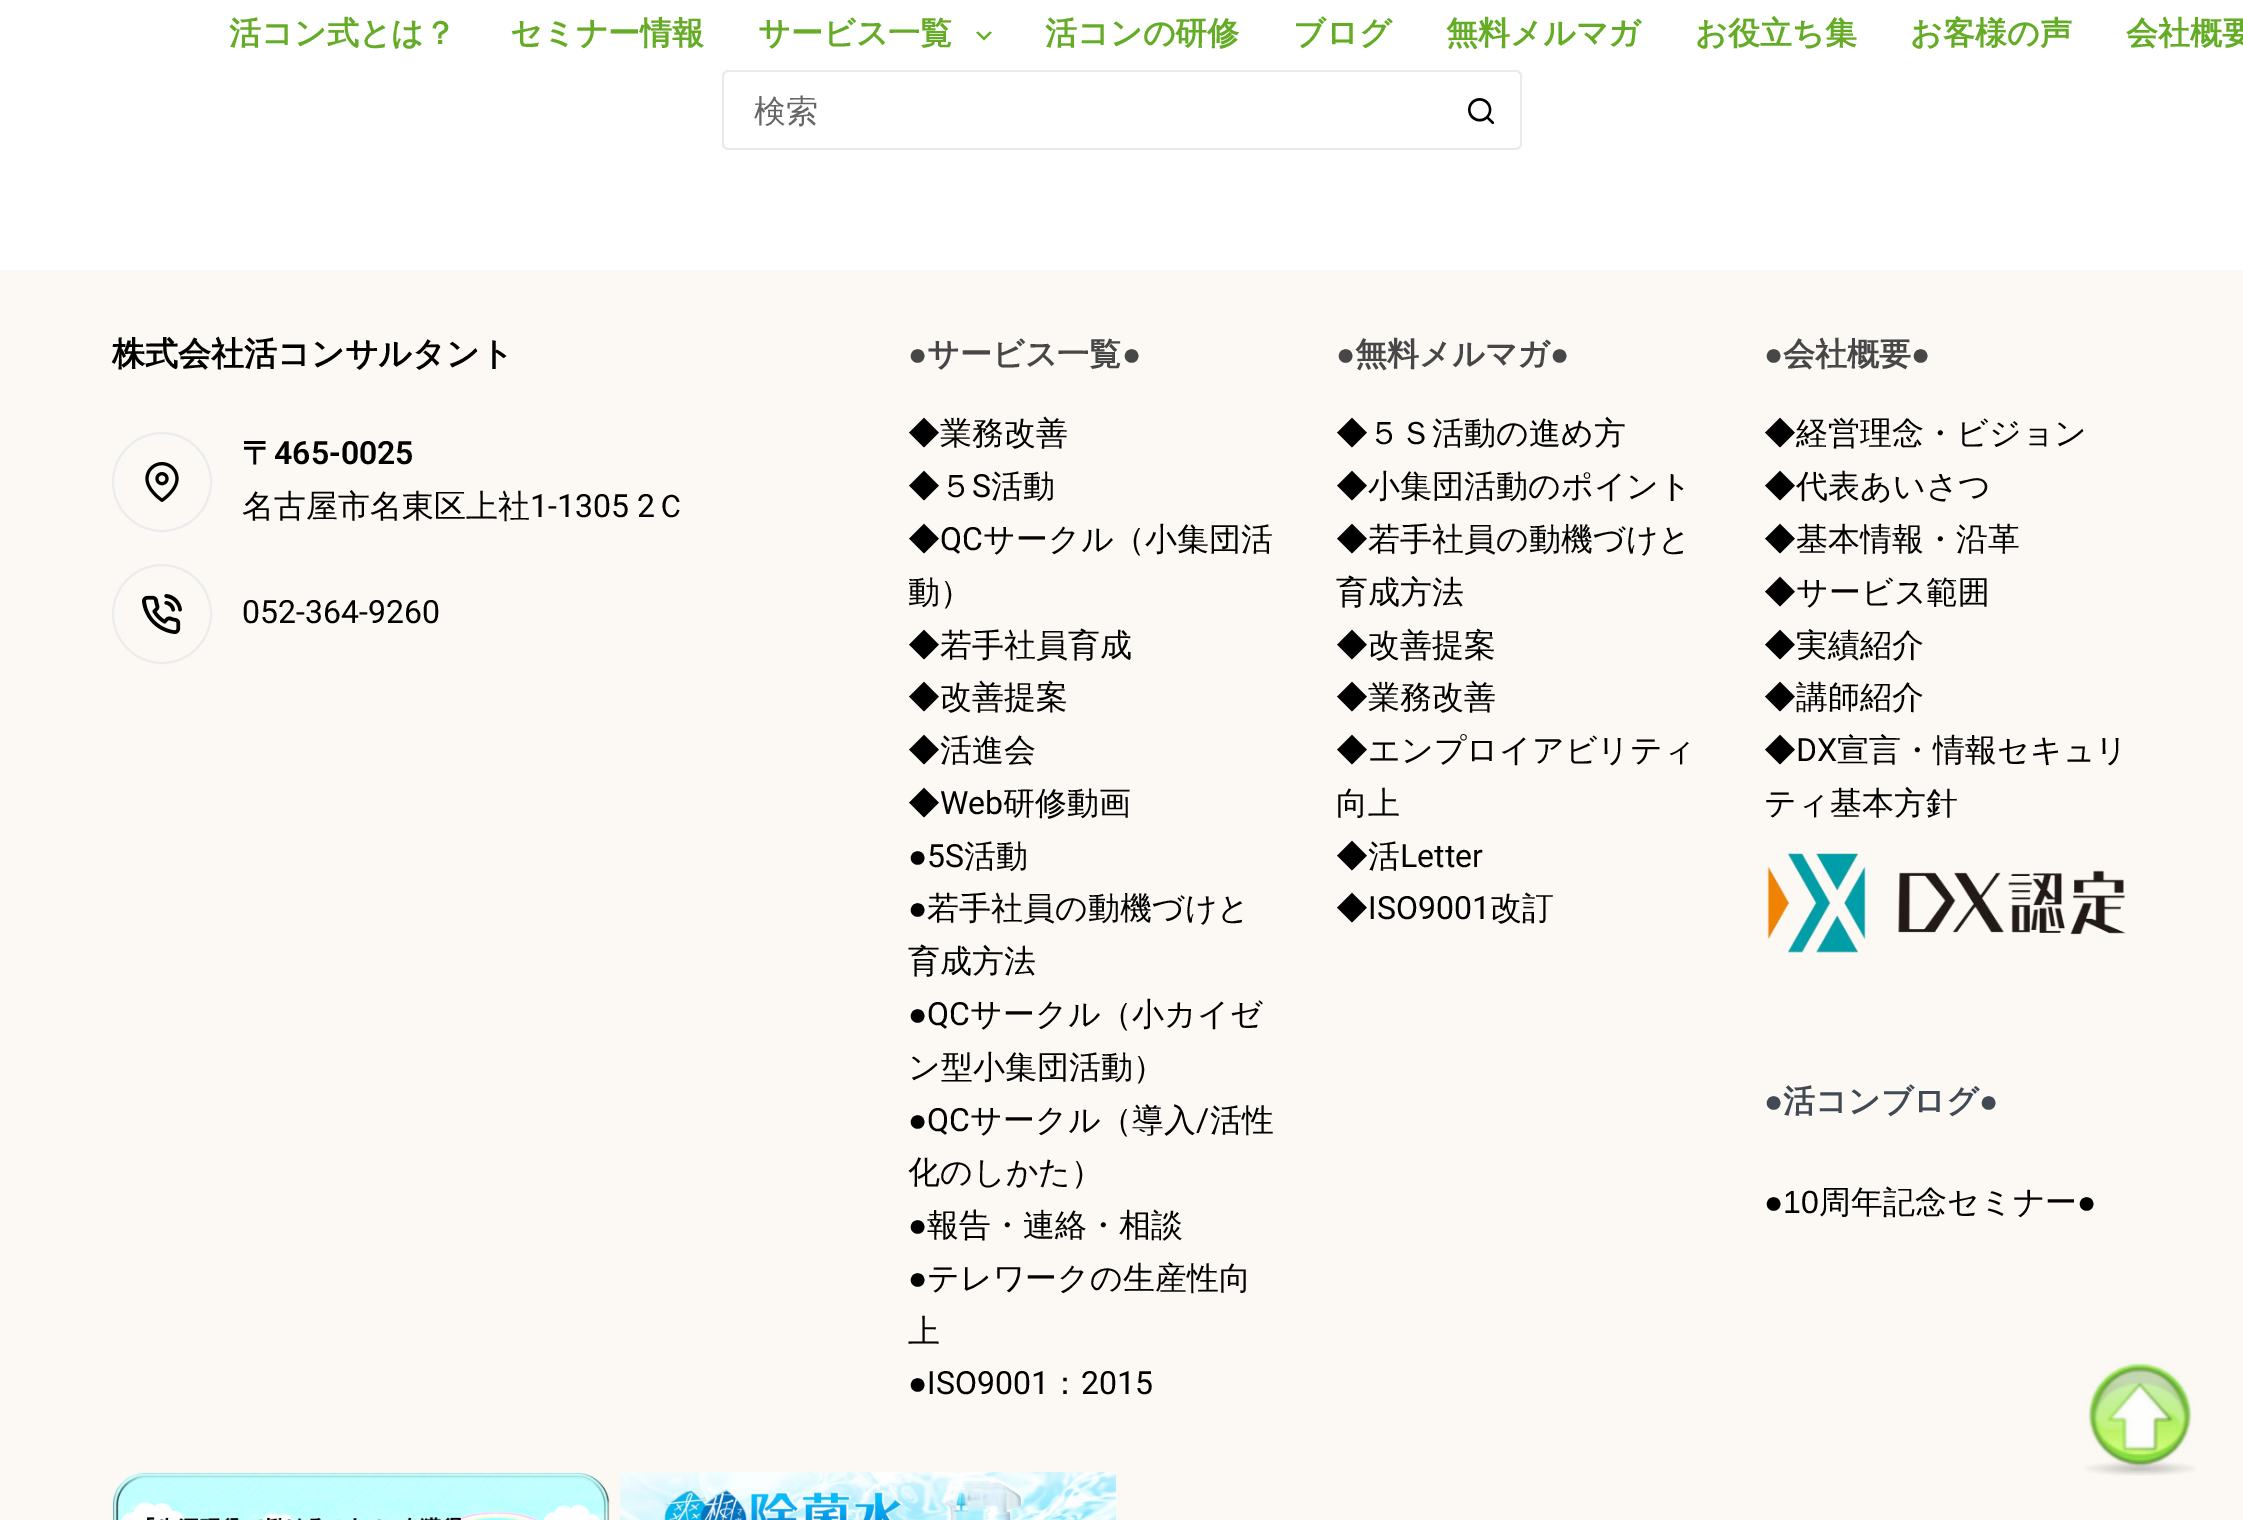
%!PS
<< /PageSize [2243 1520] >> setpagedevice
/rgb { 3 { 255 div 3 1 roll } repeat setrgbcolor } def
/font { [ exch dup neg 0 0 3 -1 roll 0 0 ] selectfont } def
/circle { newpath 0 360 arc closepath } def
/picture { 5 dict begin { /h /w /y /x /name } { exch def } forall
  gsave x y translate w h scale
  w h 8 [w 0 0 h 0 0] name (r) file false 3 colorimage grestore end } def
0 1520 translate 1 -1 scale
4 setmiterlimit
255 255 255 rgb
0 0 2243 1520 rectfill
(img/1.rgb) 976 31 16 10 picture
231 235 238 rgb
728 70 moveto 1442 70 lineto 1442 150 lineto 728 150 lineto 725 150 722 147 722 144 curveto 722 76 lineto 722 73 725 70 728 70 curveto closepath 728 72 moveto 1442 72 lineto 1442 148 lineto 728 148 lineto 726 148 724 146 724 144 curveto 724 76 lineto 724 74 726 72 728 72 curveto closepath eofill
1442 70 moveto 1516 70 lineto 1519 70 1522 73 1522 76 curveto 1522 144 lineto 1522 147 1519 150 1516 150 curveto 1442 150 lineto closepath 1442 72 moveto 1516 72 lineto 1518 72 1520 74 1520 76 curveto 1520 144 lineto 1520 146 1518 148 1516 148 curveto 1442 148 lineto closepath eofill
(img/2.rgb) 1468 98 26 26 picture
252 249 245 rgb
0 270 2243 1250 rectfill
235 236 237 rgb
2 setlinewidth
162 482 49 circle stroke
(img/3.rgb) 145 462 34 40 picture
162 614 49 circle stroke
(img/4.rgb) 142 594 40 40 picture
(img/5.rgb) 1767 853 359 101 picture
(img/6.rgb) 112 1472 498 48 picture
(img/7.rgb) 620 1472 496 48 picture
(img/8.rgb) 2085 1363 111 113 picture
/WenQuanYiZenHei-Bold 32 font
100 172 37 rgb
[
  [(活コン式とは？) 229 44]
  [(セミナー情報) 510 44]
  [(サービス一覧) 758 44]
  [(活コンの研修) 1045 44]
  [(ブログ) 1293 44]
  [(無料メルマガ) 1446 44]
  [(お役立ち集) 1695 44]
  [(お客様の声) 1910 44]
  [(会社概要) 2126 44]
] { aload pop moveto show } forall
/WenQuanYiZenHei-Medium 32 font
102 102 102 rgb
754 122 moveto (検索) show
/WenQuanYiZenHei-Bold 33 font
0 0 0 rgb
112 365 moveto (株式会社活コンサルタント) show
/WenQuanYiZenHei-Bold 32 font
242 464 moveto (〒) show
/Roboto-SemiBold 32 font
274 464 moveto (465-0025) show
/WenQuanYiZenHei-Medium 32 font
242 517 moveto (名古屋市名東区上社) show
/Roboto-Regular 32 font
530 517 moveto (1-1305 2) show
/WenQuanYiZenHei-Medium 32 font
655 517 moveto (Ｃ) show
/Roboto-Regular 32 font
242 623 moveto (052-364-9260) show
/LiberationSans-Bold 32 font
71 71 71 rgb
908 365 moveto (●) show
/WenQuanYiZenHei-Bold 32 font
927 365 moveto (サービス一覧) show
/LiberationSans-Bold 32 font
1122 365 moveto (●) show
/WenQuanYiZenHei-Medium 32 font
0 0 0 rgb
908 444 moveto (◆業務改善) show
908 497 moveto (◆５) show
/Roboto-Regular 32 font
972 497 moveto (S) show
/WenQuanYiZenHei-Medium 32 font
991 497 moveto (活動) show
908 550 moveto (◆) show
/Roboto-Regular 32 font
940 550 moveto (QC) show
/WenQuanYiZenHei-Medium 32 font
[
  [(サークル（小集団活) 983 550]
  [(動）) 908 603]
  [(◆若手社員育成) 908 656]
  [(◆改善提案) 908 708]
  [(◆活進会) 908 761]
  [(◆) 908 814]
] { aload pop moveto show } forall
/Roboto-Regular 32 font
940 814 moveto (Web) show
/WenQuanYiZenHei-Medium 32 font
1003 814 moveto (研修動画) show
/LiberationSans-Regular 32 font
908 867 moveto (●) show
/Roboto-Regular 32 font
927 867 moveto (5S) show
/WenQuanYiZenHei-Medium 32 font
964 867 moveto (活動) show
/LiberationSans-Regular 32 font
908 919 moveto (●) show
/WenQuanYiZenHei-Medium 32 font
927 919 moveto (若手社員の動機づけと) show
908 972 moveto (育成方法) show
/LiberationSans-Regular 32 font
908 1025 moveto (●) show
/Roboto-Regular 32 font
927 1025 moveto (QC) show
/WenQuanYiZenHei-Medium 32 font
970 1025 moveto (サークル（小カイゼ) show
908 1078 moveto (ン型小集団活動）) show
/LiberationSans-Regular 32 font
908 1131 moveto (●) show
/Roboto-Regular 32 font
927 1131 moveto (QC) show
/WenQuanYiZenHei-Medium 32 font
970 1131 moveto (サークル（導入) show
/Roboto-Regular 32 font
1196 1131 moveto (/) show
/WenQuanYiZenHei-Medium 32 font
1210 1131 moveto (活性) show
908 1183 moveto (化のしかた）) show
/LiberationSans-Regular 32 font
908 1236 moveto (●) show
/WenQuanYiZenHei-Medium 32 font
927 1236 moveto (報告・連絡・相談) show
/LiberationSans-Regular 32 font
908 1289 moveto (●) show
/WenQuanYiZenHei-Medium 32 font
927 1289 moveto (テレワークの生産性向) show
908 1342 moveto (上) show
/LiberationSans-Regular 32 font
908 1394 moveto (●) show
/Roboto-Regular 32 font
927 1394 moveto (ISO9001) show
/WenQuanYiZenHei-Medium 32 font
1049 1394 moveto (：) show
/Roboto-Regular 32 font
1081 1394 moveto (2015) show
/LiberationSans-Bold 32 font
71 71 71 rgb
1336 365 moveto (●) show
/WenQuanYiZenHei-Bold 32 font
1355 365 moveto (無料メルマガ) show
/LiberationSans-Bold 32 font
1550 365 moveto (●) show
/WenQuanYiZenHei-Medium 32 font
0 0 0 rgb
[
  [(◆５Ｓ活動の進め方) 1336 444]
  [(◆小集団活動のポイント) 1336 497]
  [(◆若手社員の動機づけと) 1336 550]
  [(育成方法) 1336 603]
  [(◆改善提案) 1336 656]
  [(◆業務改善) 1336 708]
  [(◆エンプロイアビリティ) 1336 761]
  [(向上) 1336 814]
  [(◆活) 1336 867]
] { aload pop moveto show } forall
/Roboto-Regular 32 font
1400 867 moveto (Letter) show
/WenQuanYiZenHei-Medium 32 font
1336 919 moveto (◆) show
/Roboto-Regular 32 font
1368 919 moveto (ISO9001) show
/WenQuanYiZenHei-Medium 32 font
1490 919 moveto (改訂) show
/LiberationSans-Bold 32 font
71 71 71 rgb
1764 365 moveto (●) show
/WenQuanYiZenHei-Bold 32 font
1783 365 moveto (会社概要) show
/LiberationSans-Bold 32 font
1911 365 moveto (●) show
/WenQuanYiZenHei-Medium 32 font
0 0 0 rgb
[
  [(◆経営理念・ビジョン) 1764 444]
  [(◆代表あいさつ) 1764 497]
  [(◆基本情報・沿革) 1764 550]
  [(◆サービス範囲) 1764 603]
  [(◆実績紹介) 1764 656]
  [(◆講師紹介) 1764 708]
  [(◆) 1764 761]
] { aload pop moveto show } forall
/Roboto-Regular 32 font
1796 761 moveto (DX) show
/WenQuanYiZenHei-Medium 32 font
1837 761 moveto (宣言・情報セキュリ) show
1764 814 moveto (ティ基本方針) show
/LiberationSans-Bold 32 font
65 74 84 rgb
1764 1112 moveto (●) show
/WenQuanYiZenHei-Bold 32 font
1783 1112 moveto (活コンブログ) show
/LiberationSans-Bold 32 font
1979 1112 moveto (●) show
/LiberationSans-Regular 32 font
0 0 0 rgb
1764 1213 moveto (●10) show
/WenQuanYiZenHei-Medium 32 font
1819 1213 moveto (周年記念セミナー) show
/LiberationSans-Regular 32 font
2077 1213 moveto (●) show
showpage
